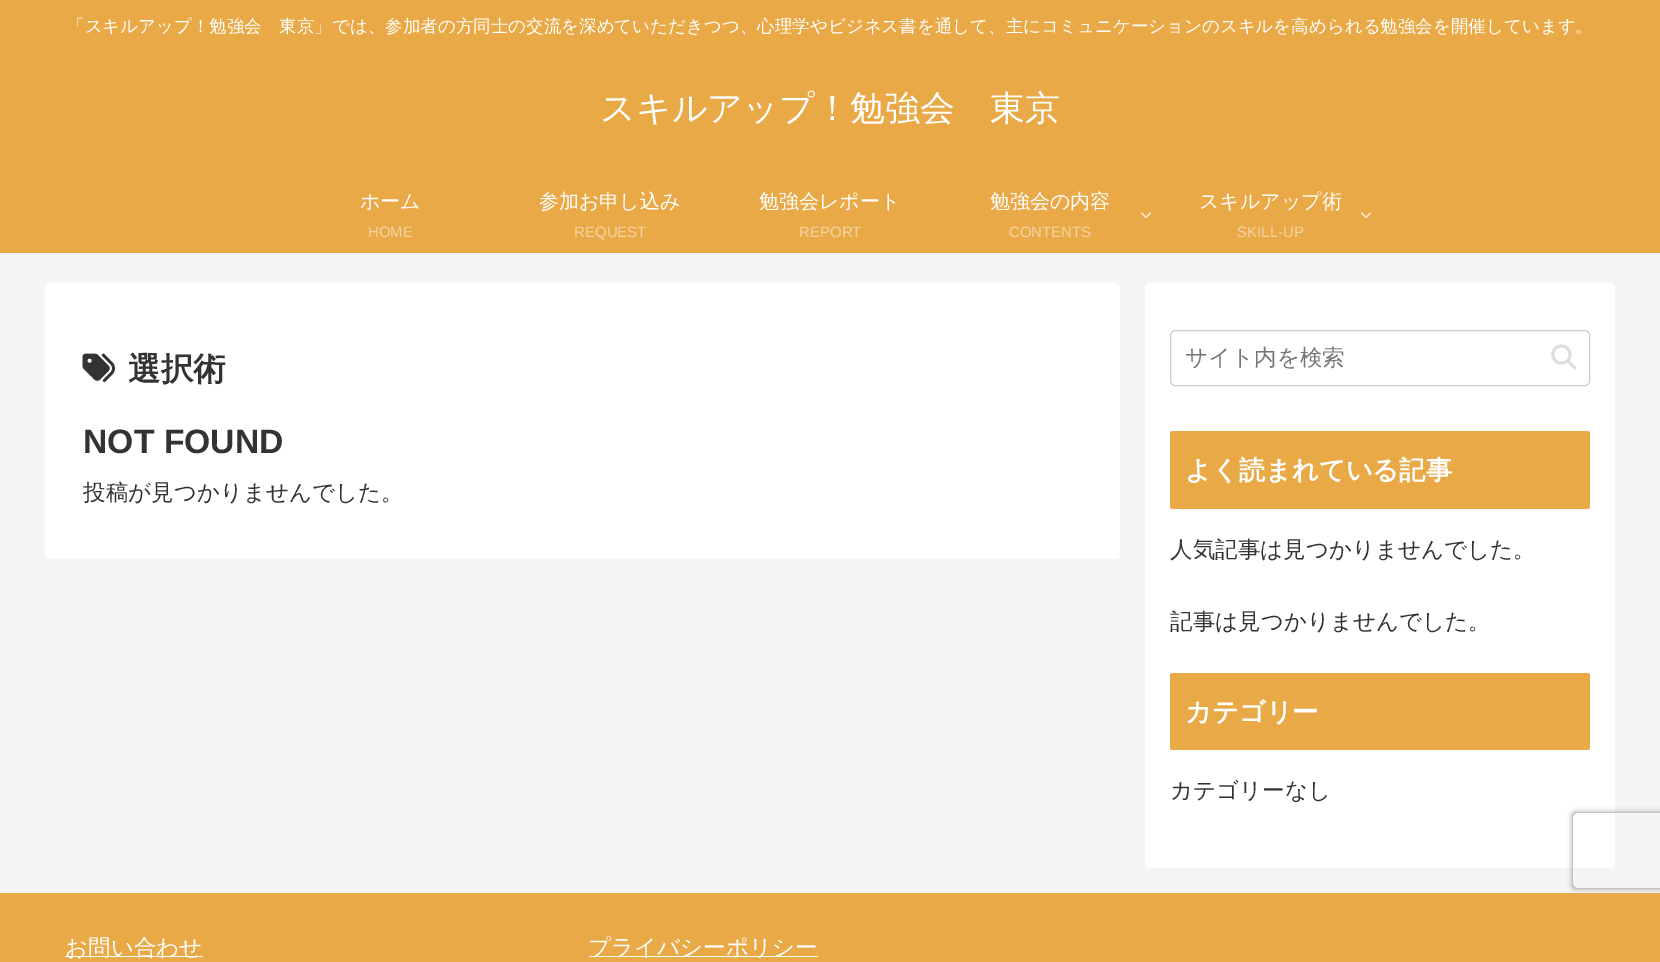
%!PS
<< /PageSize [1660 962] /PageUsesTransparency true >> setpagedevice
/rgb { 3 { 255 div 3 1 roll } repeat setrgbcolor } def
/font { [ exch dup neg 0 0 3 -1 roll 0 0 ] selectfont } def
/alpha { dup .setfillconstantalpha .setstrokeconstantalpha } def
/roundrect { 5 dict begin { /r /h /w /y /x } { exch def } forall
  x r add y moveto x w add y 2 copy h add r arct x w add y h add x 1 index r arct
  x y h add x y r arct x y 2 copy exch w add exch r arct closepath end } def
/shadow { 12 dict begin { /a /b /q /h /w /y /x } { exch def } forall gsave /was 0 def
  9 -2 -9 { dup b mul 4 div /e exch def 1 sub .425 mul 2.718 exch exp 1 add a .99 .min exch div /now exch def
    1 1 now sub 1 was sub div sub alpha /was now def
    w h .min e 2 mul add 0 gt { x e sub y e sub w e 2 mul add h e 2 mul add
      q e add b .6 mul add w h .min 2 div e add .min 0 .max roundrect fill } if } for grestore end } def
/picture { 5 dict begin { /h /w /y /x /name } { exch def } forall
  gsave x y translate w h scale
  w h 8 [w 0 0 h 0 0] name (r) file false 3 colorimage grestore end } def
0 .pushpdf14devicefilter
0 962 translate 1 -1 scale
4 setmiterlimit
245 245 245 rgb
0 0 1660 962 rectfill
233 169 71 rgb
0 0 1660 253 rectfill
(img/1.rgb) 1140 212 12 7 picture
(img/1.rgb) 1360 212 12 7 picture
255 255 255 rgb
45 283 1075 276 5 roundrect fill
(img/2.rgb) 82 353 33 29 picture
1145 283 470 585 5 roundrect fill
204 204 204 rgb
1170.5 330.5 419 55 4.5 roundrect stroke
(img/3.rgb) 1551 344 26 26 picture
233 169 71 rgb
1170 431 420 78 2.5 roundrect fill
1170 673 420 77 2.5 roundrect fill
[
  [0 893 1660 69 233 169 71]
  [65 956 138 1 255 255 255]
  [589 956 229 1 255 255 255]
] { aload pop rgb rectfill } forall
gsave
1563 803 moveto 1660 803 lineto 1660 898 lineto 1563 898 lineto closepath 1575.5 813 moveto 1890.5 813 lineto 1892 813 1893 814 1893 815.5 curveto 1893 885.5 lineto 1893 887 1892 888 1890.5 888 curveto 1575.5 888 lineto 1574 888 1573 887 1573 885.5 curveto 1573 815.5 lineto 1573 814 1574 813 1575.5 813 curveto closepath eoclip newpath
128 128 128 rgb
1573 813 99 75 2.5 3 1 shadow
grestore
/WenQuanYiZenHei-Medium 17.5 font
67 32 moveto (「スキルアップ！勉強会　東京」では、参加者の方同士の交流を深めていただきつつ、心理学やビジネス書を通して、主にコミュニケーションのスキルを高められる勉強会を開催しています。) show
/WenQuanYiZenHei-Medium 35 font
600 120 moveto (スキルアップ！勉強会　東京) show
/WenQuanYiZenHei-Medium 20 font
360 208 moveto (ホーム) show
/LiberationSans-Regular 15 font
244 212 163 rgb
368 237 moveto (HOME) show
/WenQuanYiZenHei-Medium 20 font
255 255 255 rgb
539 208 moveto (参加お申し込み) show
/LiberationSans-Regular 15 font
244 212 163 rgb
574 237 moveto (REQUEST) show
/WenQuanYiZenHei-Medium 20 font
255 255 255 rgb
759 208 moveto (勉強会レポート) show
/LiberationSans-Regular 15 font
244 212 163 rgb
799 237 moveto (REPORT) show
/WenQuanYiZenHei-Medium 20 font
255 255 255 rgb
990 208 moveto (勉強会の内容) show
/LiberationSans-Regular 15 font
244 212 163 rgb
1009 237 moveto (CONTENTS) show
/WenQuanYiZenHei-Medium 20 font
255 255 255 rgb
1199 208 moveto (スキルアップ術) show
/LiberationSans-Regular 15 font
244 212 163 rgb
1237 237 moveto (SKILL-UP) show
/WenQuanYiZenHei-Bold 32.5 font
51 51 51 rgb
128 380 moveto (選択術) show
/LiberationSans-Bold 33.75 font
83 453 moveto (NOT FOUND) show
/WenQuanYiZenHei-Medium 22.5 font
83 500 moveto (投稿が見つかりませんでした。) show
117 117 117 rgb
1185 365 moveto (サイト内を検索) show
/WenQuanYiZenHei-Bold 26.25 font
255 255 255 rgb
1185 479 moveto (よく読まれている記事) show
/WenQuanYiZenHei-Medium 22.5 font
51 51 51 rgb
1170 557 moveto (人気記事は見つかりませんでした。) show
1170 629 moveto (記事は見つかりませんでした。) show
/WenQuanYiZenHei-Bold 26.25 font
255 255 255 rgb
1185 721 moveto (カテゴリー) show
/WenQuanYiZenHei-Medium 22.5 font
51 51 51 rgb
1170 798 moveto (カテゴリーなし) show
255 255 255 rgb
65 955 moveto (お問い合わせ) show
588 955 moveto (プライバシーポリシー) show
.poppdf14devicefilter showpage
